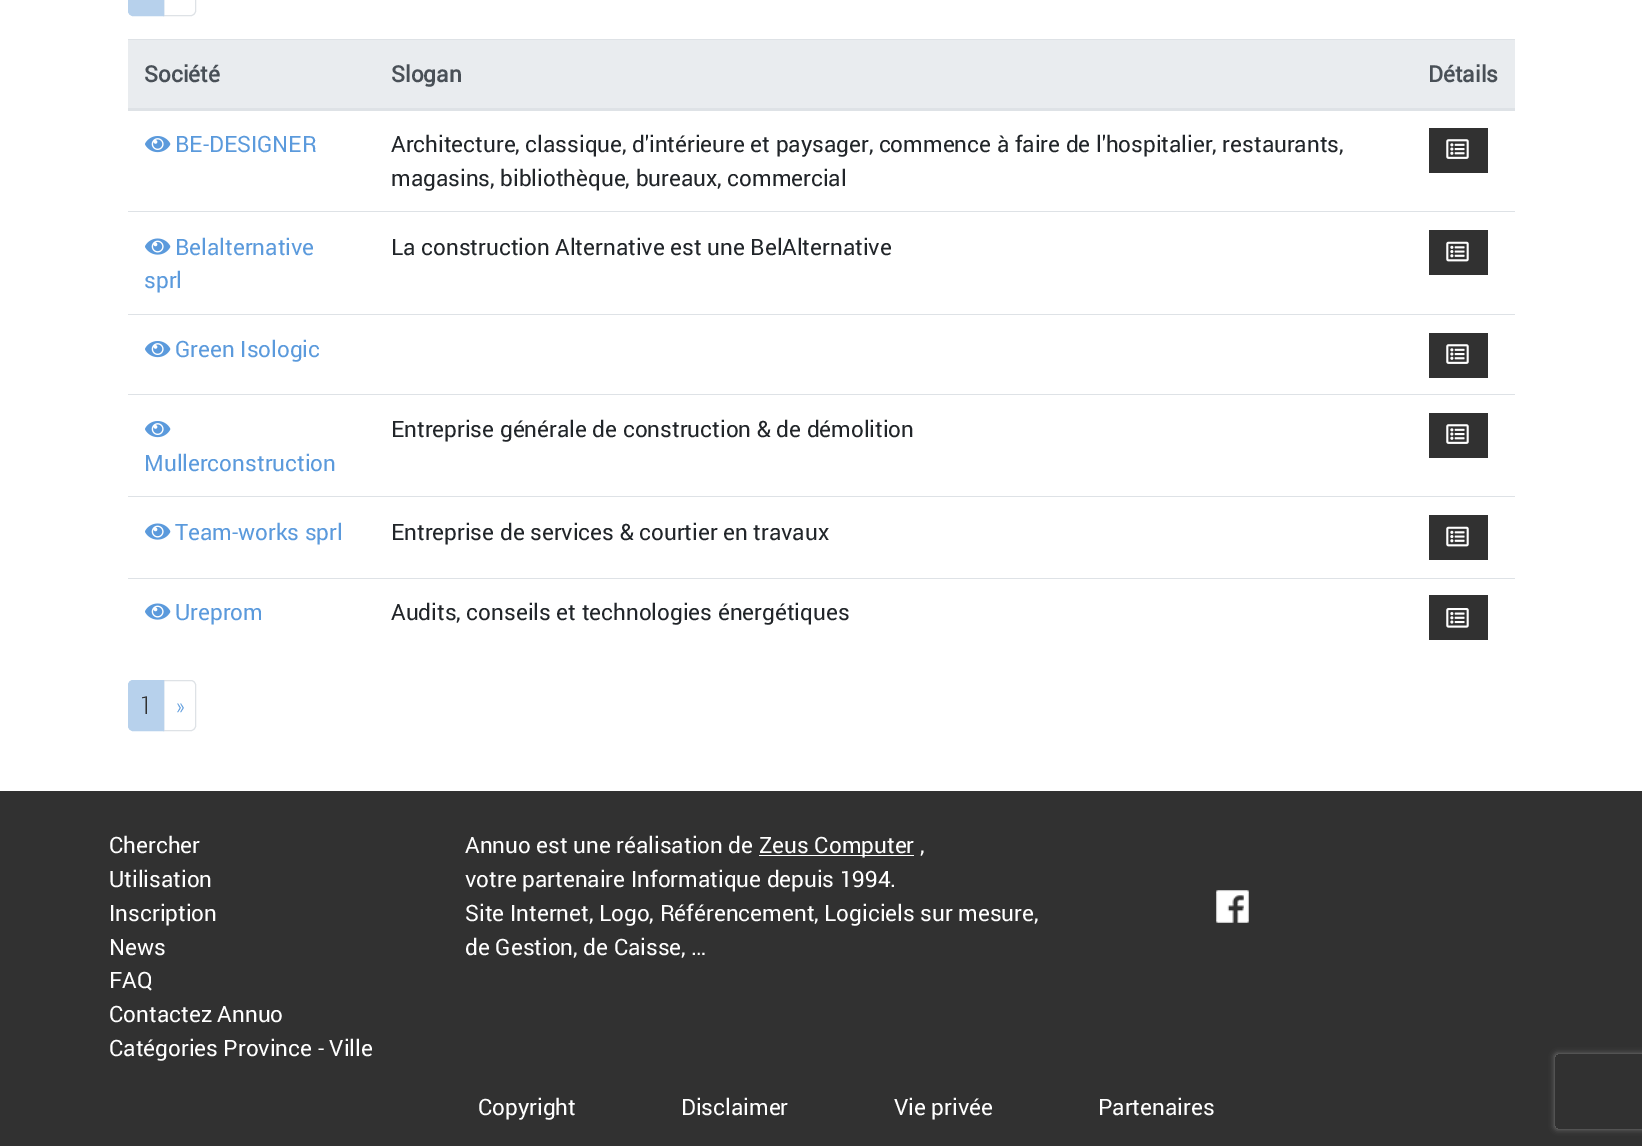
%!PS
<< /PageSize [1642 1146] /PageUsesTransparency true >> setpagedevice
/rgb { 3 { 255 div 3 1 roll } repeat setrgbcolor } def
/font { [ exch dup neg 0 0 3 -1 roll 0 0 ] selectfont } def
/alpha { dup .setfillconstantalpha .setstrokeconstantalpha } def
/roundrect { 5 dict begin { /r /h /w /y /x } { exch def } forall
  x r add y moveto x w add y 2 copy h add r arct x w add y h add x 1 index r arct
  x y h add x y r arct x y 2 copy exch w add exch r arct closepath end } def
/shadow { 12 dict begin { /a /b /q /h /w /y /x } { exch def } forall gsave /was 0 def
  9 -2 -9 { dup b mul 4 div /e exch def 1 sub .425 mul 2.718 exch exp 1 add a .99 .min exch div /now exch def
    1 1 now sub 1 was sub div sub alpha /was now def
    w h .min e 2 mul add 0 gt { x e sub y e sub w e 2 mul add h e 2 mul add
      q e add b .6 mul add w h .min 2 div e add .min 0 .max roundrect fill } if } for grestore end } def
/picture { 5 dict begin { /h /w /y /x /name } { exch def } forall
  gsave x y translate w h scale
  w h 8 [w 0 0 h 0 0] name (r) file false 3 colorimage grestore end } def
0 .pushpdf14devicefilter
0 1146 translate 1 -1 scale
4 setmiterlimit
255 255 255 rgb
0 0 1642 1146 rectfill
222 226 230 rgb
163.5 -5.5 moveto 191 -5.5 lineto 193.5 -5.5 195.5 -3.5 195.5 -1 curveto 195.5 11 lineto 195.5 13.5 193.5 15.5 191 15.5 curveto 163.5 15.5 lineto closepath stroke
183 209 236 rgb
133 -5.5 moveto 163.5 -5.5 lineto 163.5 15.5 lineto 133 15.5 lineto 130.5 15.5 128.5 13.5 128.5 11 curveto 128.5 -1 lineto 128.5 -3.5 130.5 -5.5 133 -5.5 curveto closepath gsave fill grestore
stroke
[
  [128 40 1387 68 233 236 239]
  [128 39 1387 1 222 226 230]
  [128 108 1387 3 222 226 230]
] { aload pop rgb rectfill } forall
(img/1.rgb) 145 136 26 17 picture
49 49 49 rgb
1429 128 59 45 rectfill
(img/2.rgb) 1446 139 23 20 picture
222 226 230 rgb
128 211 1387 1 rectfill
49 49 49 rgb
1429 230 59 45 rectfill
(img/3.rgb) 1446 241 23 21 picture
(img/4.rgb) 145 238 26 17 picture
222 226 230 rgb
128 314 1387 1 rectfill
49 49 49 rgb
1429 333 59 45 rectfill
(img/2.rgb) 1446 344 23 20 picture
(img/1.rgb) 145 341 26 17 picture
222 226 230 rgb
128 394 1387 1 rectfill
49 49 49 rgb
1429 413 59 45 rectfill
(img/2.rgb) 1446 424 23 20 picture
(img/1.rgb) 145 421 26 17 picture
222 226 230 rgb
128 496 1387 1 rectfill
49 49 49 rgb
1429 515 59 45 rectfill
(img/3.rgb) 1446 526 23 21 picture
(img/4.rgb) 145 523 26 17 picture
222 226 230 rgb
128 578 1387 1 rectfill
49 49 49 rgb
1429 595 59 45 rectfill
(img/5.rgb) 1446 608 23 20 picture
(img/4.rgb) 145 603 26 17 picture
222 226 230 rgb
163.5 680.5 moveto 191 680.5 lineto 193.5 680.5 195.5 682.5 195.5 685 curveto 195.5 726 lineto 195.5 728.5 193.5 730.5 191 730.5 curveto 163.5 730.5 lineto closepath stroke
183 209 236 rgb
133 680.5 moveto 163.5 680.5 lineto 163.5 730.5 lineto 133 730.5 lineto 130.5 730.5 128.5 728.5 128.5 726 curveto 128.5 685 lineto 128.5 682.5 130.5 680.5 133 680.5 curveto closepath gsave fill grestore
stroke
49 49 49 rgb
0 791 1642 355 rectfill
255 255 255 rgb
759 855 155 1 rectfill
(img/6.rgb) 1216 890 33 33 picture
gsave
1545 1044 moveto 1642 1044 lineto 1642 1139 lineto 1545 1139 lineto closepath 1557.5 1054 moveto 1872.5 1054 lineto 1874 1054 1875 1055 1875 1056.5 curveto 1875 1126.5 lineto 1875 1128 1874 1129 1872.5 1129 curveto 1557.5 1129 lineto 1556 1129 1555 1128 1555 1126.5 curveto 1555 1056.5 lineto 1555 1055 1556 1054 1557.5 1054 curveto closepath eoclip newpath
128 128 128 rgb
1555 1054 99 75 2.5 3 1 shadow
grestore
/Roboto-Bold 22.5 font
73 80 87 rgb
[
  [(Société) 144 82]
  [(Slogan) 391 82]
  [(Détails) 1428 82]
] { aload pop moveto show } forall
/Roboto-Regular 22.5 font
91 154 220 rgb
175 152 moveto (BE-DESIGNER) show
33 37 41 rgb
391 152 moveto (Architecture, classique, d'intérieure et paysager, commence à faire de l'hospitalier, restaurants,) show
391 186 moveto (magasins, bibliothèque, bureaux, commercial) show
91 154 220 rgb
175 255 moveto (Belalternative) show
144 288 moveto (sprl) show
33 37 41 rgb
391 255 moveto (La construction Alternative est une BelAlternative) show
91 154 220 rgb
175 357 moveto (Green Isologic) show
33 37 41 rgb
391 437 moveto (Entreprise générale de construction & de démolition) show
91 154 220 rgb
144 471 moveto (Mullerconstruction) show
175 540 moveto (Team-works sprl) show
33 37 41 rgb
391 540 moveto (Entreprise de services & courtier en travaux) show
91 154 220 rgb
175 620 moveto (Ureprom) show
33 37 41 rgb
391 620 moveto (Audits, conseils et technologies énergétiques) show
/RobotoCondensed-Light 25 font
49 49 49 rgb
140 714 moveto (1) show
/RobotoCondensed-Light 22.5 font
91 154 220 rgb
176 714 moveto (») show
/Roboto-Regular 22.5 font
255 255 255 rgb
[
  [(Chercher) 109 853]
  [(Utilisation) 109 887]
  [(Inscription) 109 921]
  [(News) 109 955]
  [(FAQ) 109 988]
  [(Contactez Annuo) 109 1022]
  [(Catégories Province - Ville) 109 1056]
  [(Annuo est une réalisation de) 465 853]
  [(Zeus Computer ,) 759 853]
  [(votre partenaire Informatique depuis 1994.) 465 887]
  [(Site Internet, Logo, Référencement, Logiciels sur mesure,) 465 921]
  [(de Gestion, de Caisse, …) 465 955]
  [(Copyright) 478 1115]
  [(Disclaimer) 681 1115]
  [(Vie privée) 894 1115]
  [(Partenaires) 1098 1115]
] { aload pop moveto show } forall
.poppdf14devicefilter showpage
